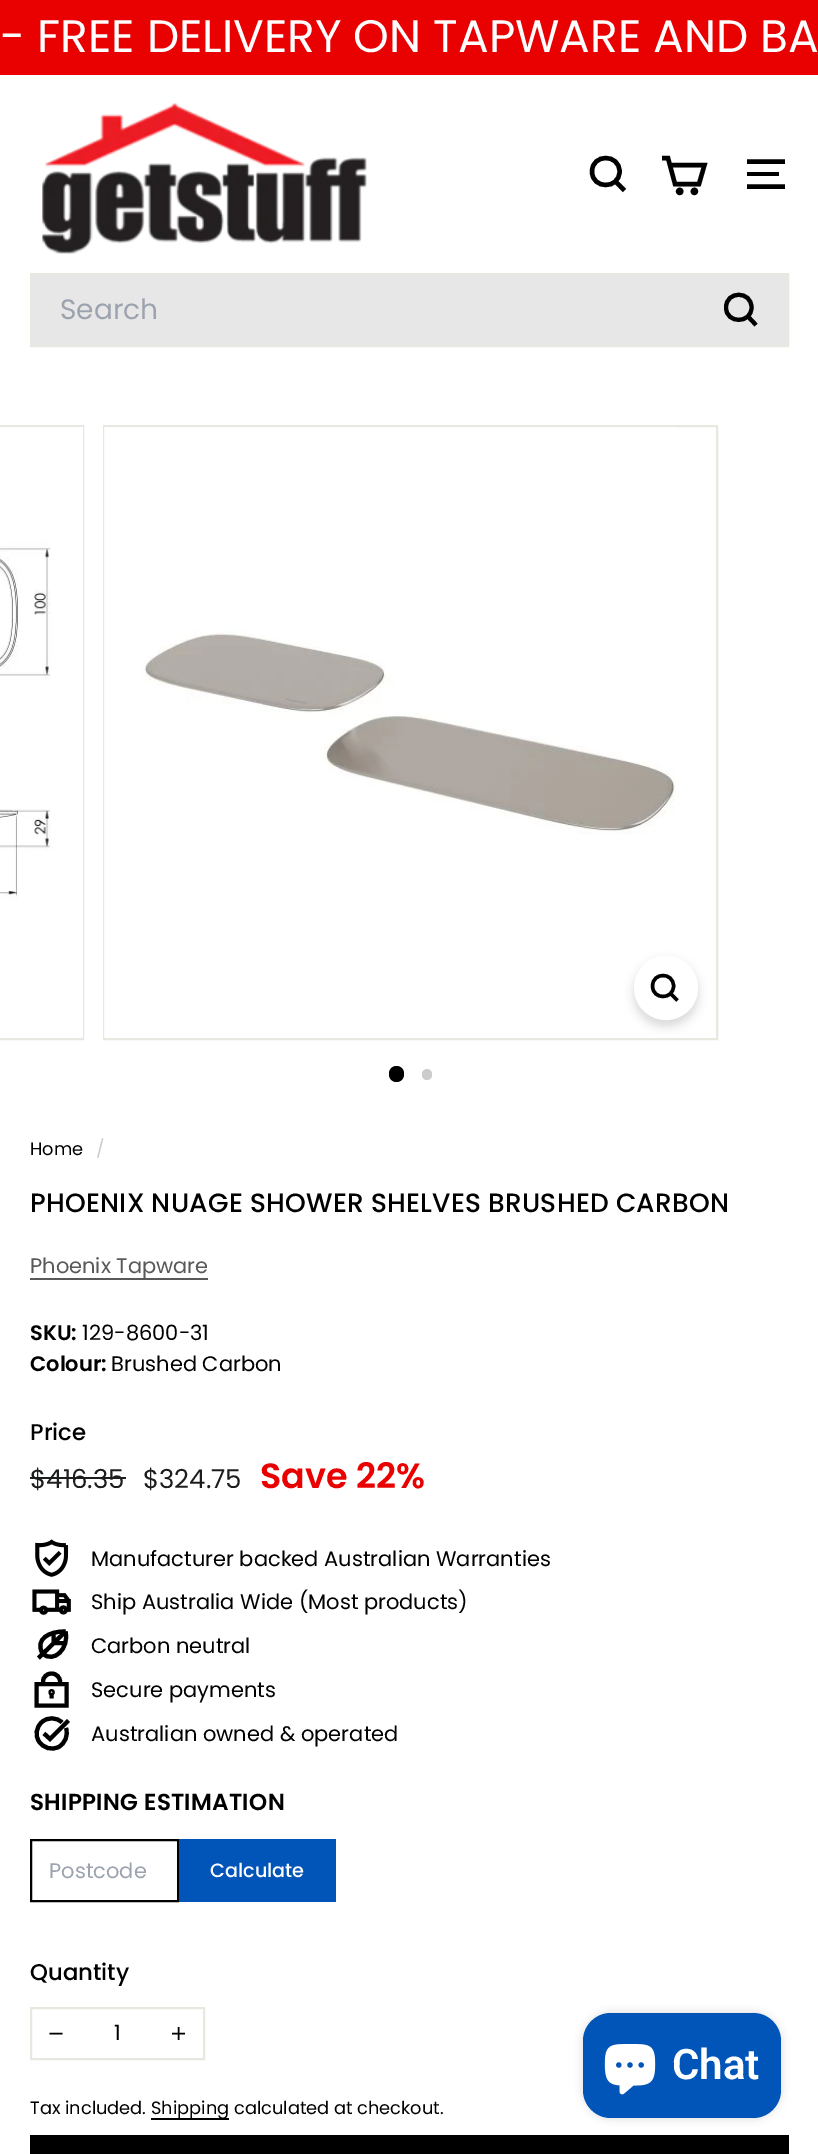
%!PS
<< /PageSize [818 2154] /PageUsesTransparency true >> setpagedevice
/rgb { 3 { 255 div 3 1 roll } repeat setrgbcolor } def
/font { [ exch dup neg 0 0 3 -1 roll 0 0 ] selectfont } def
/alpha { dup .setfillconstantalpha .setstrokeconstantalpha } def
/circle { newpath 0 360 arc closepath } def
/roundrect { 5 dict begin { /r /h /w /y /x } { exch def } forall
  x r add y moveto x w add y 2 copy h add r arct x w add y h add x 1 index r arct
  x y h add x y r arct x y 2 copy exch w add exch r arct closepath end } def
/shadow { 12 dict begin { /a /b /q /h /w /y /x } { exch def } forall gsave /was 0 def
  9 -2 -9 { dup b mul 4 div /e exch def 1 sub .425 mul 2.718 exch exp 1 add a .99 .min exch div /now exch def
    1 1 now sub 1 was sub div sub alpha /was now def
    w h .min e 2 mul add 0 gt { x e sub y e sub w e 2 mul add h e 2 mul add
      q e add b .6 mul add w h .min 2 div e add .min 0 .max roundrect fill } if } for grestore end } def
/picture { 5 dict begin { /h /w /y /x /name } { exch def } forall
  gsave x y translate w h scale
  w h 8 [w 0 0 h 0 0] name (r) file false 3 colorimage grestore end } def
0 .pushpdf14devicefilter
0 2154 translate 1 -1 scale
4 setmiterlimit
255 255 255 rgb
0 0 818 2154 rectfill
233 0 0 rgb
0 0 818 75 rectfill
(img/1.rgb) 42 103 325 151 picture
0 0 0 rgb
4.4 setlinewidth
619.5 171.5 moveto 619.5 189.5 592 189.5 592 171.5 curveto 592 153.5 619.5 153.5 619.5 171.5 curveto 624.5 190.5 moveto 615.5 181.5 lineto stroke
670 165 moveto 704.5 165 lineto 699 184 lineto 675 184 lineto 668 158 lineto 662 158 lineto stroke
679.7 191.4 1.5 circle gsave fill grestore
stroke
694.4 191.4 1.5 circle gsave fill grestore
stroke
747 161.5 moveto 785 161.5 lineto stroke
747 172 32 4 rectfill
747 186.5 moveto 785 186.5 lineto stroke
231 231 231 rgb
31 274 moveto 788 274 lineto 788 346 lineto 31 346 lineto closepath gsave fill grestore
232 232 225 rgb
2 setlinewidth
stroke
0 0 0 rgb
4.1 setlinewidth
751.5 307.5 moveto 751.5 324 726 324 726 307.5 curveto 726 290.5 751.5 290.5 751.5 307.5 curveto 756 325 moveto 748 316.5 lineto stroke
232 232 225 rgb
2 setlinewidth
-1 426 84 613 rectstroke
(img/2.rgb) 0 427 83 611 picture
104 426 613 613 rectstroke
(img/3.rgb) 104 427 571 611 picture
gsave
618 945 moveto 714 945 lineto 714 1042 lineto 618 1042 lineto closepath 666 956 moveto 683.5 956 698 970.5 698 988 curveto 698 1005.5 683.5 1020 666 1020 curveto 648.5 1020 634 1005.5 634 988 curveto 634 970.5 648.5 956 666 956 curveto closepath eoclip newpath
0 0 0 rgb
634 961 64 65 32 5 0.15 shadow
grestore
255 255 255 rgb
666 988 32 circle fill
0 0 0 rgb
3.4 setlinewidth
673.5 986 moveto 673.5 1000 652.5 1000 652.5 986 curveto 652.5 972 673.5 972 673.5 986 curveto 677.5 1000.5 moveto 670.5 993.5 lineto stroke
389 1066 15 16 7.5 roundrect fill
204 204 204 rgb
422 1069 10 11 5 roundrect fill
89 89 89 rgb
30 1278 178 2 rectfill
28 29 29 rgb
30 1477 96 2 rectfill
(img/4.rgb) 35 1539 34 38 picture
(img/5.rgb) 32 1589 39 26 picture
0 0 0 rgb
4.1 setlinewidth
65.5 1631.5 moveto 38.5 1658 lineto 53.5 1633 moveto 53.5 1643 lineto 64.5 1643 lineto 65.5 1631.5 moveto 69.5 1648 54 1664 42.5 1653.5 curveto 34.5 1639 49.5 1631 65.5 1631.5 curveto stroke
43 1684 moveto 43 1681.5 lineto 43 1677 47 1673.5 51.5 1673.5 curveto 56.5 1673.5 60 1677.5 60 1681.5 curveto 60 1684 lineto 36.5 1684 moveto 66.5 1684 lineto 66.5 1705.5 lineto 36.5 1705.5 lineto closepath 51.5 1693.5 moveto 51.5 1698.5 lineto stroke
51.6 1692.3 1.1 circle stroke
66 1728 moveto 68.5 1735.5 65 1743.5 58.5 1747 curveto 51.5 1750.5 43.5 1748 39 1741.5 curveto 35 1735.5 36 1727 42 1722 curveto 47.5 1717 56.5 1717 62 1722.5 curveto 44 1733.5 moveto 50 1739 lineto 68.5 1720.5 lineto stroke
2 setlinewidth
31 1840 147 61 rectstroke
1 84 184 rgb
179 1839 157 63 rectfill
232 232 225 rgb
31 2008 173 51 rectstroke
0 0 0 rgb
1.6 setlinewidth
62.5 2033.5 moveto 49.5 2033.5 lineto stroke
178.5 2027 moveto 178.5 2040 lineto 185 2033.5 moveto 172 2033.5 lineto stroke
151 2118 78 2 rectfill
30 2135 759 19 rectfill
583 2013 198 105 28 4.5 0.15 shadow
1 84 184 rgb
583 2013 198 105 28 roundrect fill
(img/6.rgb) 604 2044 52 51 picture
/Poppins-Regular 45.5 font
255 255 255 rgb
0 52 moveto (- FREE DELIVERY ON TAPWARE AND BA) show
/Poppins-Regular 28 font
156 163 175 rgb
60 319 moveto (Search) show
/Poppins-Regular 17.8 font
0 0 0 rgb
30 1155 moveto (Home) show
204 204 204 rgb
96 1155 moveto (/) show
/Poppins-Medium 26.45 font
0 0 0 rgb
30 1212 moveto 0.25 0 (PHOENIX NUAGE SHOWER SHELVES BRUSHED CARBON) ashow
/Poppins-Regular 21 font
89 89 89 rgb
30 1273 moveto (Phoenix Tapware) show
/Poppins-SemiBold 21 font
0 0 0 rgb
30 1340 moveto (SKU:) show
/Poppins-Regular 21 font
82 1340 moveto (129-8600-31) show
/Poppins-SemiBold 21 font
30 1371 moveto (Colour:) show
/Poppins-Regular 21 font
111 1371 moveto (Brushed Carbon) show
/Poppins-Medium 22.75 font
30 1440 moveto (Price) show
/Poppins-Regular 26 font
28 29 29 rgb
30 1488 moveto ($416.35) show
143 1488 moveto ($324.75) show
/Poppins-SemiBold 35 font
233 0 0 rgb
260 1488 moveto (Save 22%) show
/Poppins-Regular 21 font
0 0 0 rgb
[
  [(Manufacturer backed Australian Warranties) 91 1566]
  [(Ship Australia Wide \(Most products\)) 91 1609]
  [(Carbon neutral) 91 1653]
  [(Secure payments) 91 1697]
  [(Australian owned & operated) 91 1741]
] { aload pop moveto show } forall
/Poppins-SemiBold 23.1 font
30 1810 moveto 0.25 0 (SHIPPING ESTIMATION) ashow
/Poppins-Regular 21 font
156 163 175 rgb
49 1878 moveto (Postcode) show
/Poppins-Medium 19.25 font
255 255 255 rgb
210 1877 moveto (Calculate) show
/Poppins-Medium 22.75 font
0 0 0 rgb
30 1980 moveto (Quantity) show
/Poppins-Regular 21 font
114 2040 moveto (1) show
/Poppins-Regular 17.8 font
30 2114 moveto (Tax included.) show
151 2114 moveto (Shipping calculated at checkout.) show
/Roboto-SemiBold 42 font
255 255 255 rgb
672 2079 moveto (Chat) show
.poppdf14devicefilter showpage
